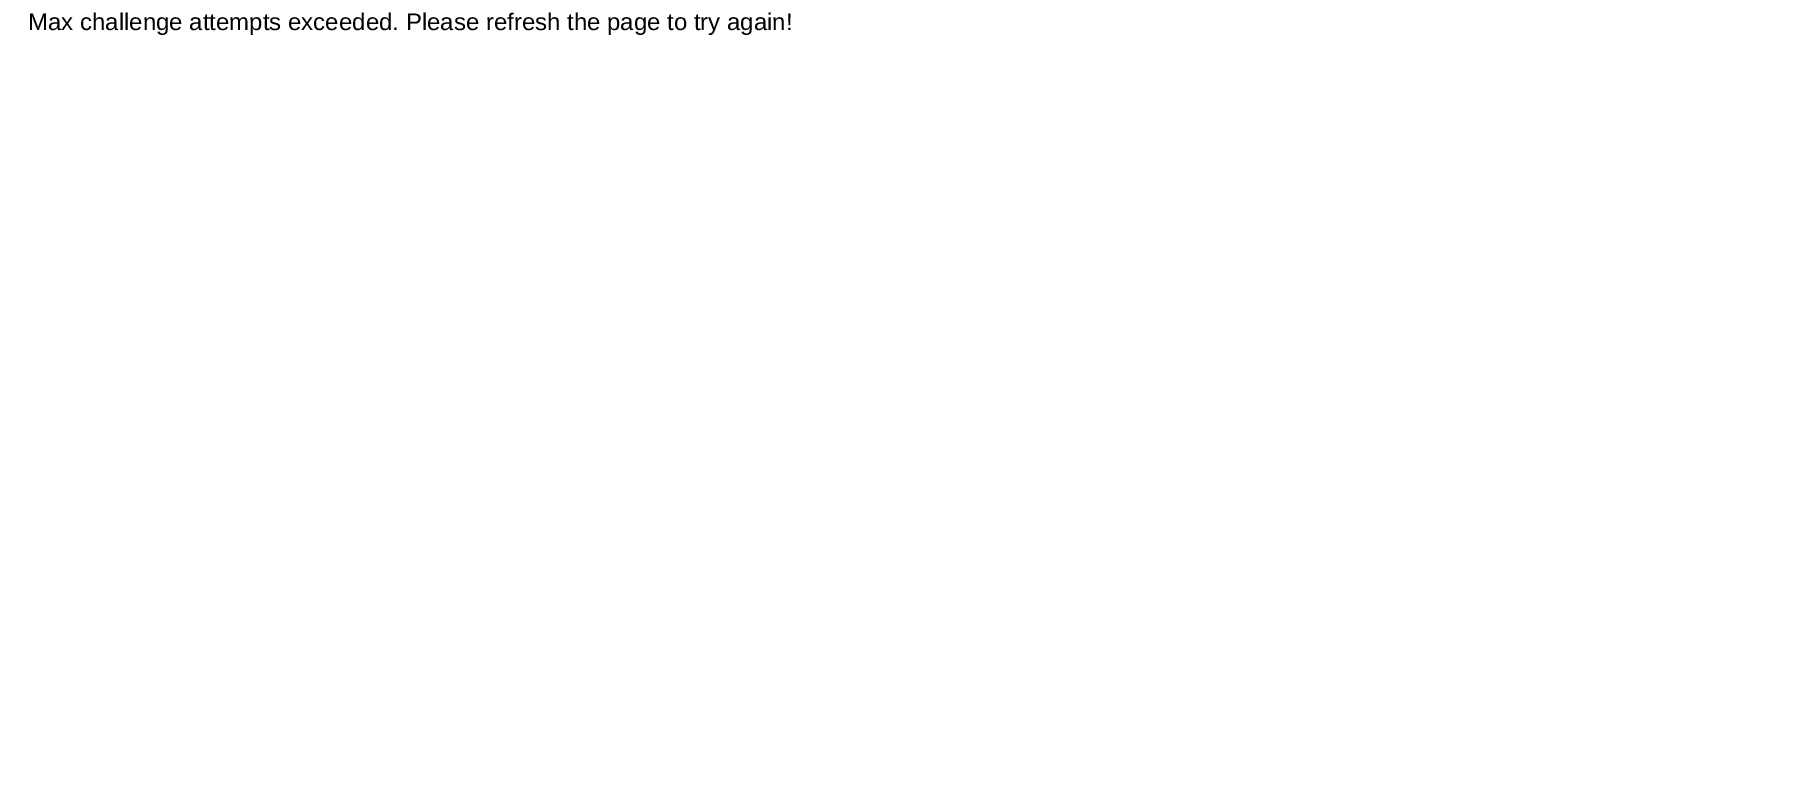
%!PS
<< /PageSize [1802 798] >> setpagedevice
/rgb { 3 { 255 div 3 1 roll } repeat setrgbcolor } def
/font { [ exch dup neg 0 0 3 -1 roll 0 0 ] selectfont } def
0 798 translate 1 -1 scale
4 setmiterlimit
255 255 255 rgb
0 0 1802 798 rectfill
/LiberationSans-Regular 24 font
0 0 0 rgb
28 30 moveto (Max challenge attempts exceeded. Please refresh the page to try again!) show
showpage
